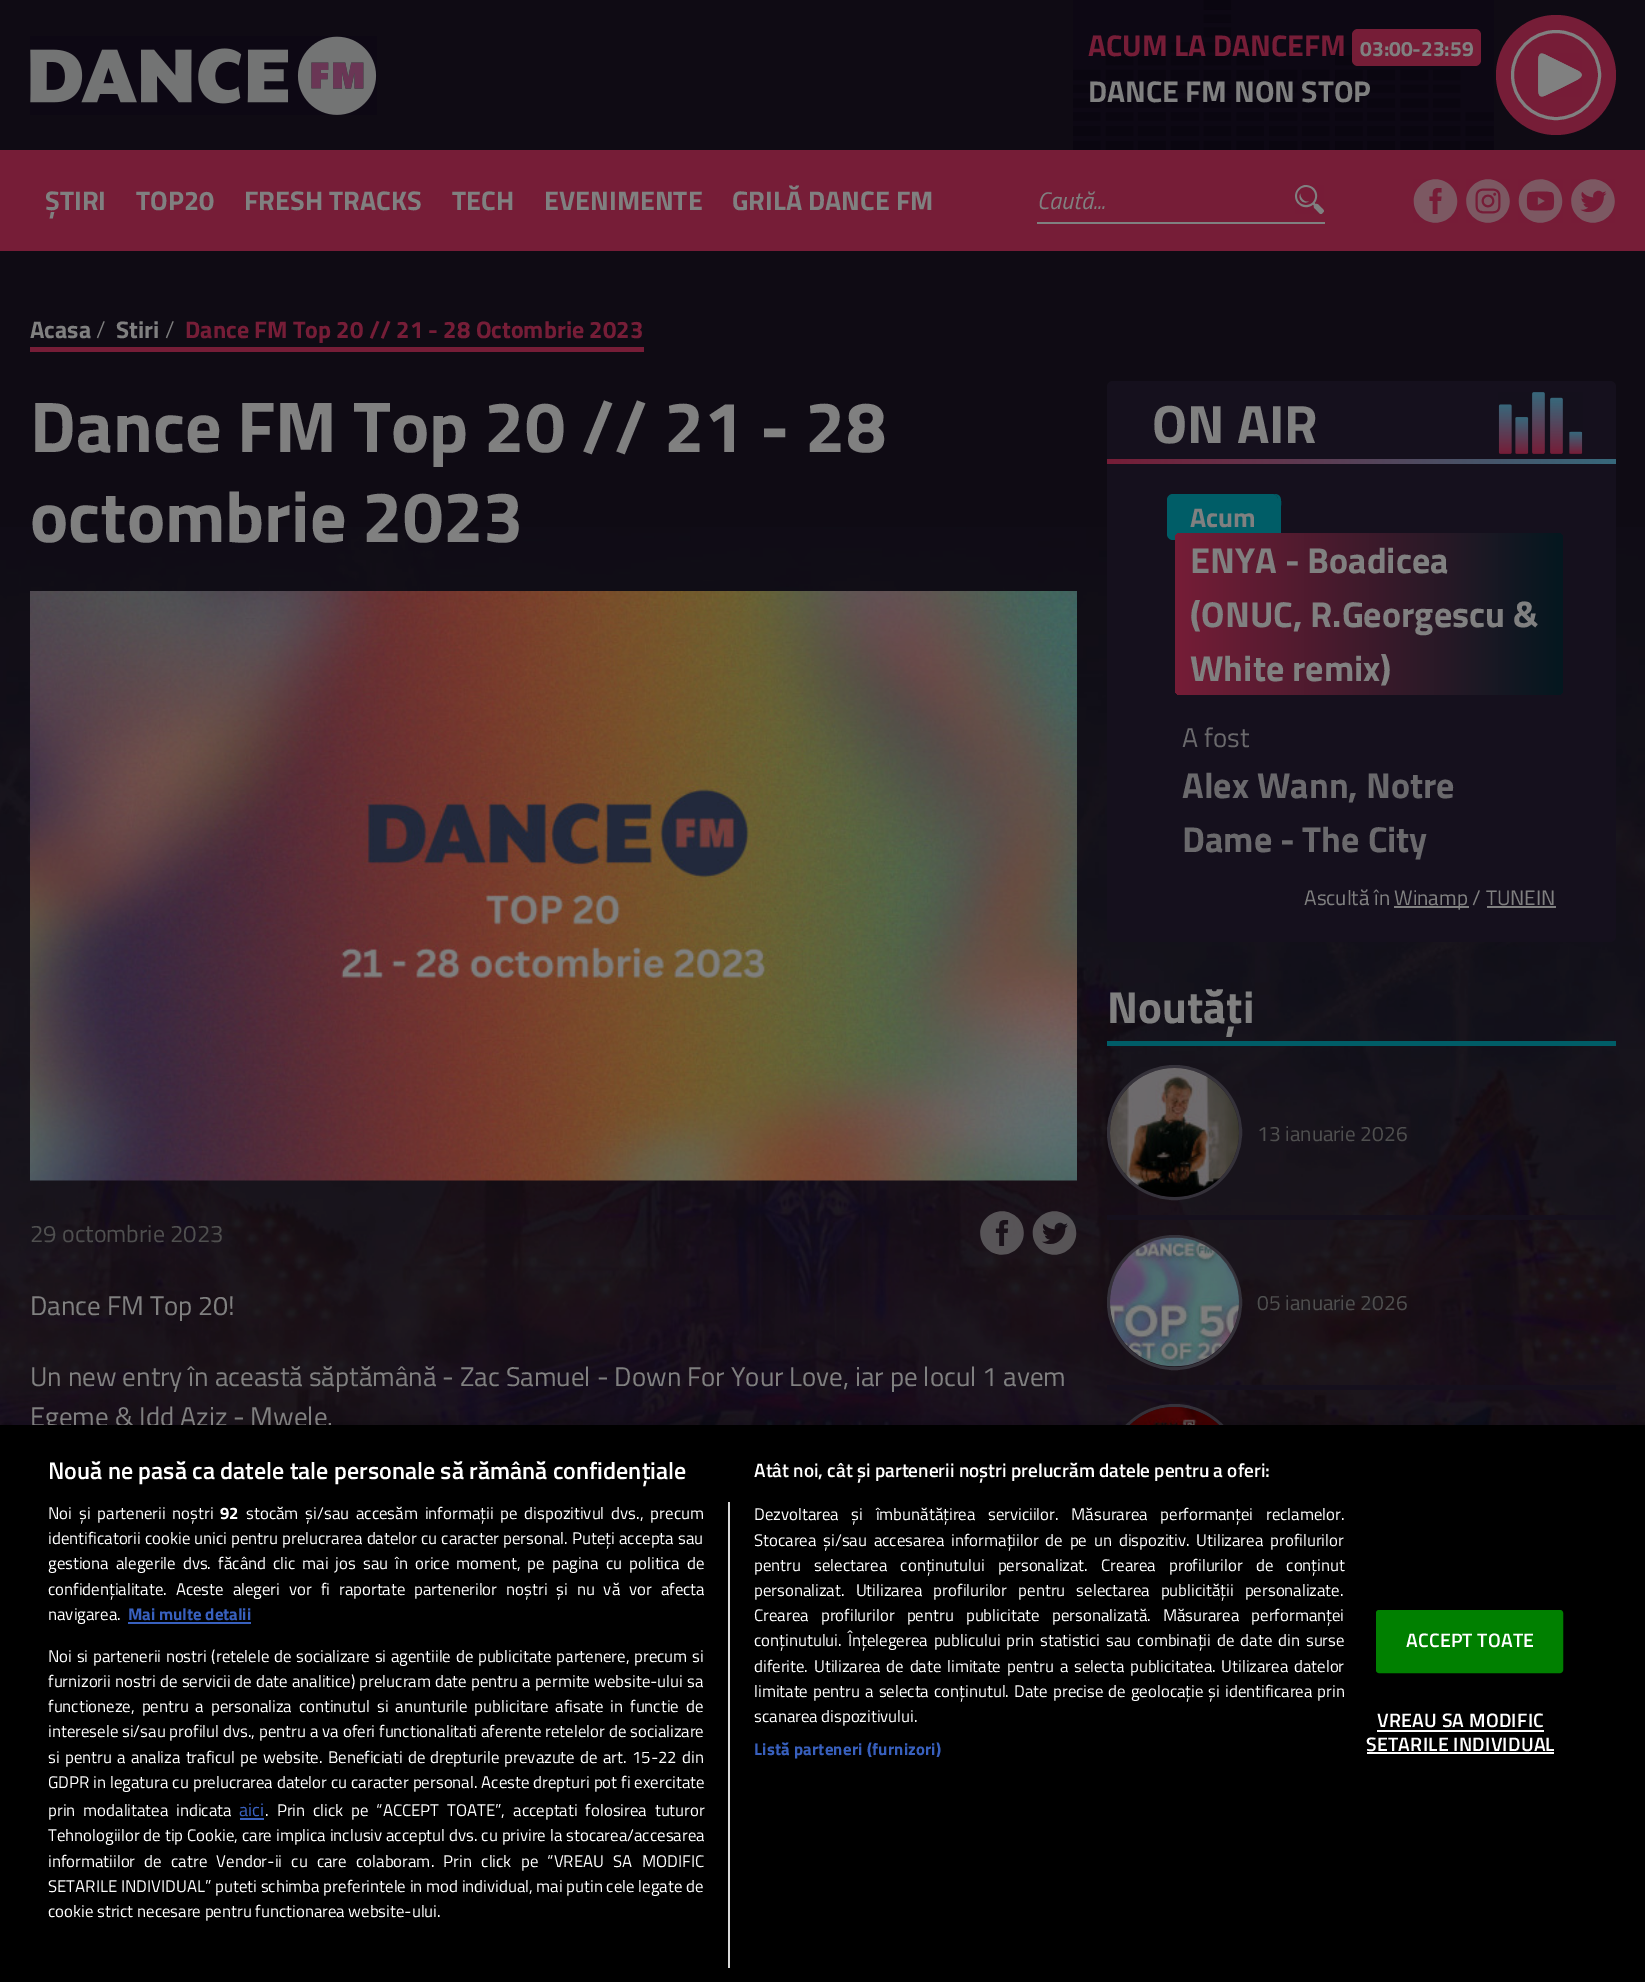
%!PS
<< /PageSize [1645 1982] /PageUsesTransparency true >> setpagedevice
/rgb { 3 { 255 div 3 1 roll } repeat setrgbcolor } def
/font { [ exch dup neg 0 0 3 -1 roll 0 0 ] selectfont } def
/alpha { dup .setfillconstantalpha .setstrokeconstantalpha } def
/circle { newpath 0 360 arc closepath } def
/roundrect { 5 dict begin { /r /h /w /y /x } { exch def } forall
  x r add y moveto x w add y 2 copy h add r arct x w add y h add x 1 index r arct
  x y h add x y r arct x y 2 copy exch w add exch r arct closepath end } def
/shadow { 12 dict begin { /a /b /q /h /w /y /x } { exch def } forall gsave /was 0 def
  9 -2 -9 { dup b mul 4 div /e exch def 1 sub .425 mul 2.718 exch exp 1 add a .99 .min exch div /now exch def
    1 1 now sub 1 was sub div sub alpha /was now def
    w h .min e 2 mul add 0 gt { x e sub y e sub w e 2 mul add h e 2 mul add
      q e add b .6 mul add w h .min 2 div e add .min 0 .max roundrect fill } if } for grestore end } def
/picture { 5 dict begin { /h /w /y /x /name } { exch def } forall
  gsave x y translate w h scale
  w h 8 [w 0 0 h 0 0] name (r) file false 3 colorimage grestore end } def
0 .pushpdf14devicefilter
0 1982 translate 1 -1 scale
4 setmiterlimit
15 11 20 rgb
0 0 1645 1982 rectfill
(img/1.rgb) 30 36 347 79 picture
(img/2.rgb) 1073 0 421 150 picture
118 29 55 rgb
1352 29 129 37 6 roundrect fill
1556 75 60 circle fill
128 128 128 rgb
3 setlinewidth
1556 75 43.5 circle stroke
(img/3.rgb) 1538 53 44 44 picture
118 29 55 rgb
0 150 1645 101 rectfill
128 128 128 rgb
1037 222 288 2 rectfill
(img/4.rgb) 1295 185 29 29 picture
(img/5.rgb) 1413 179 45 44 picture
(img/6.rgb) 1466 179 44 44 picture
(img/7.rgb) 1518 179 45 44 picture
(img/8.rgb) 1571 179 44 44 picture
(img/9.rgb) 0 527 1645 898 picture
118 29 55 rgb
30 347 614 5 rectfill
(img/10.rgb) 30 591 1047 590 picture
(img/11.rgb) 980 1211 44 44 picture
(img/12.rgb) 1032 1211 45 44 picture
21 16 29 rgb
1107 381 509 561 6 roundrect fill
gsave 1107 459 moveto 1616 459 lineto 1616 464 lineto 1107 464 lineto closepath clip newpath
<< /ShadingType 2 /ColorSpace /DeviceRGB /Coords [1107 461 1616 461] /Extend [true true] /Function << /FunctionType 2 /Domain [0 1] /C0 [0.463 0.114 0.216] /C1 [0.216 0.408 0.482] /N 1 >> >> shfill grestore
(img/13.rgb) 1498 392 85 62 picture
0 93 103 rgb
1272 540 moveto 1281 540 1281 537 1281 528 curveto 1281 506 lineto 1281 500 1282 494 1274 494 curveto 1277 495 1278 497 1278 500 curveto 1278 534 lineto 1278 537 1275 540 1272 540 curveto closepath fill
1167 494 111 46 6 roundrect fill
gsave 1175 533 388 162 6 roundrect clip newpath
<< /ShadingType 2 /ColorSpace /DeviceRGB /Coords [1175 614 1563 614] /Extend [true true] /Function << /FunctionType 2 /Domain [0 1] /C0 [0.463 0.114 0.216] /C1 [0.016 0.09 0.122] /N 1 >> >> shfill grestore
[
  [1394 906 75 2 128 128 128]
  [1487 906 69 2 128 128 128]
  [1107 1041 509 5 0 93 103]
] { aload pop rgb rectfill } forall
53 50 59 rgb
1174.5 1132.5 66 circle stroke
(img/14.rgb) 1110 1068 129 129 picture
21 16 29 rgb
1107 1215 509 5 rectfill
53 50 59 rgb
1174.5 1302.5 66 circle stroke
(img/15.rgb) 1110 1237 129 130 picture
21 16 29 rgb
1107 1385 509 5 rectfill
53 50 59 rgb
1174.5 1471.5 66 circle stroke
(img/16.rgb) 1130 1407 89 18 picture
0 0 0 rgb
0 1425 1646 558 0 13.5 0.2 shadow
/TitilliumWeb-Bold 30 font
118 29 55 rgb
1088 56 moveto (ACUM LA DANCEFM) show
/TitilliumWeb-Bold 21 font
128 128 128 rgb
1360 56 moveto (03:00-23:59) show
/TitilliumWeb-Bold 30 font
1088 102 moveto (DANCE FM NON STOP) show
/TitilliumWeb-Bold 27 font
[
  [(ȘTIRI) 45 210]
  [(TOP20) 136 210]
  [(FRESH TRACKS) 244 210]
  [(TECH) 452 210]
  [(EVENIMENTE) 544 210]
  [(GRILĂ DANCE FM) 732 210]
] { aload pop moveto show } forall
/TitilliumWeb-Italic 24 font
1037 209 moveto (Caută...) show
/TitilliumWeb-Bold 24 font
30 338 moveto (Acasa) show
/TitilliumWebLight-Light 24 font
96 338 moveto (/) show
/TitilliumWeb-Bold 24 font
116 338 moveto (Stiri) show
/TitilliumWebLight-Light 24 font
165 338 moveto (/) show
/TitilliumWeb-Bold 24 font
118 29 55 rgb
185 338 moveto (Dance FM Top 20 // 21 - 28 Octombrie 2023) show
/TitilliumWeb-Bold 72 font
128 128 128 rgb
30 452 moveto (Dance FM Top 20 // 21 - 28) show
30 542 moveto (octombrie 2023) show
/TitilliumWeb-Regular 24 font
79 79 79 rgb
30 1242 moveto (29 octombrie 2023) show
/TitilliumWeb-Regular 27 font
128 128 128 rgb
[
  [(Dance FM Top 20!) 30 1315]
  [(Un new entry în această săptămână - Zac Samuel - Down For Your Love, iar pe locul 1 avem) 30 1386]
  [(Egeme & Idd Aziz - Mwele.) 30 1426]
] { aload pop moveto show } forall
/TitilliumWeb-Bold 54 font
1152 443 moveto (ON AIR) show
/TitilliumWeb-Bold 27 font
1190 527 moveto (Acum) show
/TitilliumWeb-Bold 36 font
[
  [(ENYA - Boadicea) 1190 573]
  [(\(ONUC, R.Georgescu &) 1190 627]
  [(White remix\)) 1190 681]
] { aload pop moveto show } forall
/TitilliumWeb-Regular 27 font
106 105 108 rgb
1182 747 moveto (A fost) show
/TitilliumWeb-Bold 36 font
1182 798 moveto (Alex Wann, Notre) show
1182 852 moveto (Dame - The City) show
/TitilliumWeb-Regular 21 font
128 128 128 rgb
1304 905 moveto (Ascultă în) show
1394 905 moveto (Winamp / TUNEIN) show
/TitilliumWeb-Bold 45 font
1107 1023 moveto (Noutăți) show
/TitilliumWeb-Regular 21 font
79 79 79 rgb
1257 1141 moveto (13 ianuarie 2026) show
1257 1310 moveto (05 ianuarie 2026) show
0 0 0 rgb
0 1425 1645 557 rectfill
/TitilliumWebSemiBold-SemiBold 24 font
255 255 255 rgb
48 1479 moveto (Nouă ne pasă ca datele tale personale să rămână confidențiale) show
/TitilliumWebSemiBold-SemiBold 19.2 font
754 1477 moveto (Atât noi, cât și partenerii noștri prelucrăm datele pentru a oferi:) show
/TitilliumWeb-Regular 16.8 font
754 1520 moveto 9 0 32 (Dezvoltarea și îmbunătățirea serviciilor. Măsurarea performanței reclamelor.) widthshow
754 1546 moveto 3.25 0 32 (Stocarea și/sau accesarea informațiilor de pe un dispozitiv. Utilizarea profilurilor) widthshow
754 1571 moveto 9.5 0 32 (pentru selectarea conținutului personalizat. Crearea profilurilor de conținut) widthshow
754 1596 moveto 7.5 0 32 (personalizat. Utilizarea profilurilor pentru selectarea publicității personalizate.) widthshow
754 1621 moveto 8.5 0 32 (Crearea profilurilor pentru publicitate personalizată. Măsurarea performanței) widthshow
754 1646 moveto 2.4 0 32 (conținutului. Înțelegerea publicului prin statistici sau combinații de date din surse) widthshow
754 1672 moveto 2.1 0 32 (diferite. Utilizarea de date limitate pentru a selecta publicitatea. Utilizarea datelor) widthshow
754 1697 moveto 1.4 0 32 (limitate pentru a selecta conținutul. Date precise de geolocație și identificarea prin) widthshow
754 1722 moveto (scanarea dispozitivului.) show
/TitilliumWeb-Bold 16.8 font
56 96 190 rgb
754 1755 moveto 0.2 0 (Listă parteneri \(furnizori\)) ashow
216 216 216 rgb
728 1502 2 466 rectfill
/TitilliumWeb-Regular 16.8 font
255 255 255 rgb
48 1519 moveto 3.25 0 32 (Noi și partenerii noștri) widthshow
/TitilliumWeb-Bold 16.8 font
220 1519 moveto (92) show
/TitilliumWeb-Regular 16.8 font
246 1519 moveto 3.25 0 32 (stocăm și/sau accesăm informații pe dispozitivul dvs., precum) widthshow
48 1544 moveto 0.5 0 32 (identificatorii cookie unici pentru prelucrarea datelor cu caracter personal. Puteți accepta sau) widthshow
48 1569 moveto 3.4 0 32 (gestiona alegerile dvs. făcând clic mai jos sau în orice moment, pe pagina cu politica de) widthshow
48 1595 moveto 5.25 0 32 (confidențialitate. Aceste alegeri vor fi raportate partenerilor noștri și nu vă vor afecta) widthshow
48 1620 moveto (navigarea.) show
/TitilliumWeb-Bold 16.8 font
56 96 190 rgb
128 1620 moveto (Mai multe detalii) show
128 1622 123 2 rectfill
/TitilliumWeb-Regular 16.8 font
255 255 255 rgb
48 1662 moveto 1 0 32 (Noi si partenerii nostri \(retelele de socializare si agentiile de publicitate partenere, precum si) widthshow
48 1687 moveto 0.5 0 32 (furnizorii nostri de servicii de date analitice\) prelucram date pentru a permite website-ului sa) widthshow
48 1712 moveto 3.25 0 32 (functioneze, pentru a personaliza continutul si anunturile publicitare afisate in functie de) widthshow
48 1737 moveto 0.25 0 32 (interesele si/sau profilul dvs., pentru a va oferi functionalitati aferente retelelor de socializare) widthshow
48 1763 moveto 1.6 0 32 (si pentru a analiza traficul pe website. Beneficiati de drepturile prevazute de art. 15-22 din) widthshow
48 1788 moveto 0.25 0 32 (GDPR in legatura cu prelucrarea datelor cu caracter personal. Aceste drepturi pot fi exercitate) widthshow
48 1816 moveto 4.25 0 32 (prin modalitatea indicata) widthshow
/TitilliumWeb-Regular 18 font
56 96 190 rgb
239 1816 moveto (aici) show
240 1818 24 2 rectfill
/TitilliumWeb-Regular 16.8 font
255 255 255 rgb
265 1816 moveto 4.25 0 32 (. Prin click pe “ACCEPT TOATE”, acceptati folosirea tuturor) widthshow
48 1841 moveto 0.25 0 32 (Tehnologiilor de tip Cookie, care implica inclusiv acceptul dvs. cu privire la stocarea/accesarea) widthshow
48 1867 moveto 5.6 0 32 (informatiilor de catre Vendor-ii cu care colaboram. Prin click pe “VREAU SA MODIFIC) widthshow
48 1892 moveto 0.1 0 32 (SETARILE INDIVIDUAL” puteti schimba preferintele in mod individual, mai putin cele legate de) widthshow
48 1917 moveto (cookie strict necesare pentru functionarea website-ului.) show
0 128 0 rgb
1377 1611 185 61 2 roundrect gsave fill grestore
2 setlinewidth
stroke
/TitilliumWebSemiBold-SemiBold 19.5 font
255 255 255 rgb
1406 1647 moveto 0.25 0 (ACCEPT TOATE) ashow
1377 1727 moveto 0.25 0 (VREAU SA MODIFIC) ashow
1377 1730 167 2 rectfill
1366 1751 moveto 0.25 0 (SETARILE INDIVIDUAL) ashow
1367 1752 187 2 rectfill
.poppdf14devicefilter showpage
